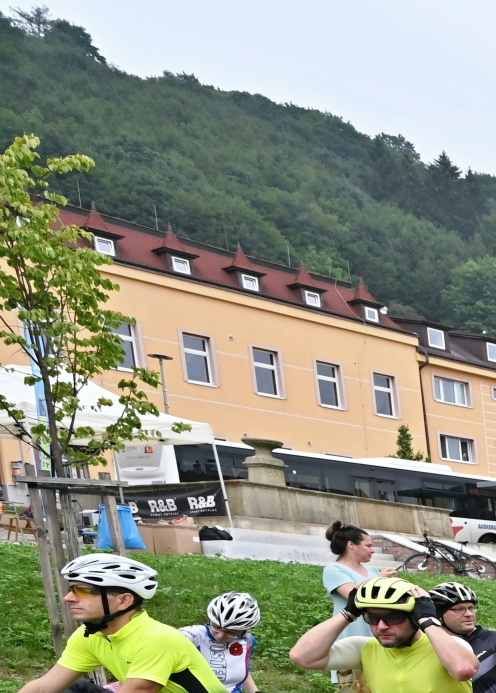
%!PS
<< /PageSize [496 693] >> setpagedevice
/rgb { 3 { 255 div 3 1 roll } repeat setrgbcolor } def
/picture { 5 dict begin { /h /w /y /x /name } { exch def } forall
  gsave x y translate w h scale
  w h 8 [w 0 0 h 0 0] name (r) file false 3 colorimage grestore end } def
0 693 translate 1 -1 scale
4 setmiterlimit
255 255 255 rgb
0 0 496 693 rectfill
(img/1.rgb) 0 0 496 693 picture
showpage
